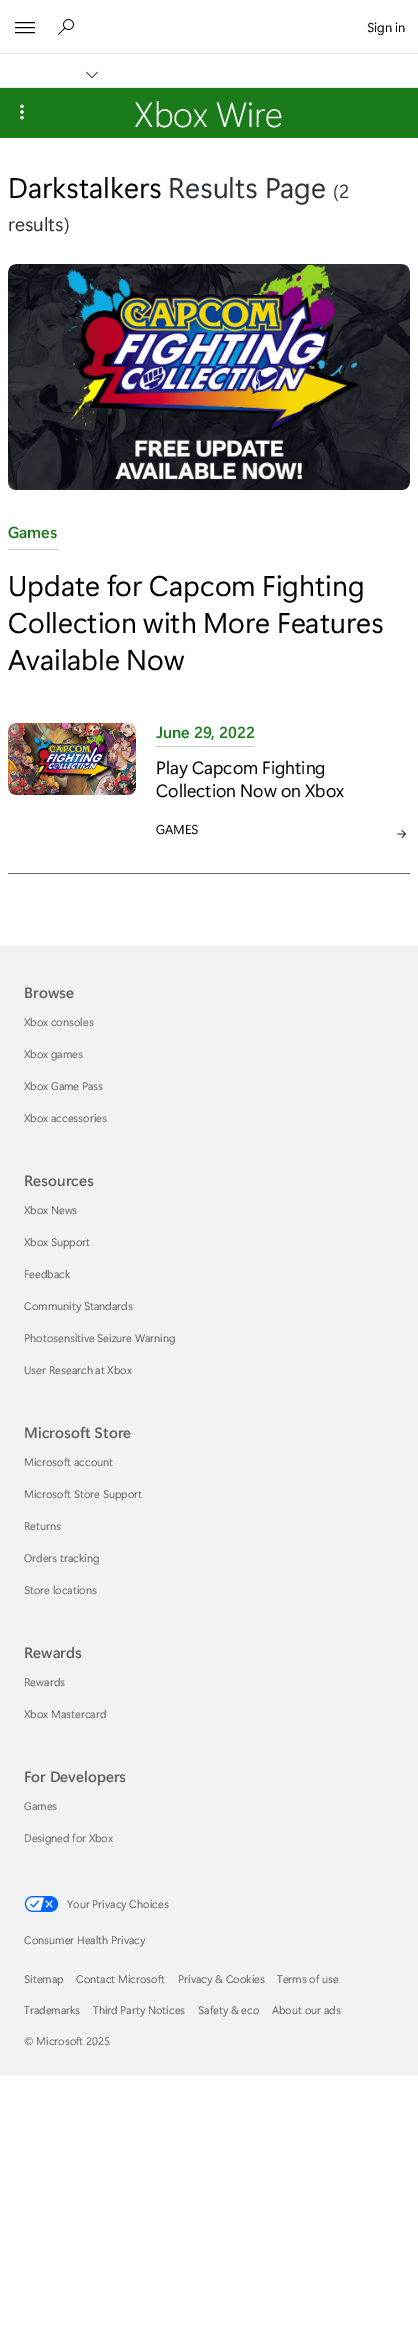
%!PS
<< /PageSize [418 2325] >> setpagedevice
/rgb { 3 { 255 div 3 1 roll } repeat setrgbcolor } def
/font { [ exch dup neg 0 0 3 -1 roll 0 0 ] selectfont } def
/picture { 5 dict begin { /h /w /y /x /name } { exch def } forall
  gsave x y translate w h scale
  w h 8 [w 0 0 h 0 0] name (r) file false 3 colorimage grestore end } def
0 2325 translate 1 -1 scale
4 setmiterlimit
255 255 255 rgb
0 0 418 2325 rectfill
230 230 230 rgb
0 53 418 1 rectfill
(img/1.rgb) 15 22 20 12 picture
(img/2.rgb) 58 19 16 16 picture
0 87 418 1 rectfill
(img/3.rgb) 86 71 12 7 picture
25 123 26 rgb
0 88 418 50 rectfill
(img/4.rgb) 20 104 4 16 picture
(img/5.rgb) 8 264 402 226 picture
204 204 204 rgb
8 549 50 1 rectfill
87 101 115 rgb
8 873 402 1 rectfill
(img/6.rgb) 8 723 128 72 picture
204 204 204 rgb
156 746 98 1 rectfill
(img/7.rgb) 397 830 9 8 picture
242 242 242 rgb
0 946 418 1129 rectfill
(img/8.rgb) 24 1896 35 16 picture
/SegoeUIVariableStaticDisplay-Regular 13 font
0 0 0 rgb
367 32 moveto (Sign in) show
/SegoeUIVariableStaticDisplay-Light 35 font
255 255 255 rgb
134 127 moveto (Xbox Wire) show
/SegoeUIVariableStaticDisplay-Regular 28.5 font
0 0 0 rgb
8 198 moveto (Darkstalkers) show
44 49 54 rgb
168 198 moveto (Results Page) show
/SegoeUIVariableStaticDisplay-Regular 19 font
333 198 moveto (\(2) show
8 231 moveto (results\)) show
/SegoeUIVariableStaticDisplay-SemiBold 16 font
25 123 26 rgb
8 538 moveto (Games) show
/SegoeUIVariableStaticDisplay-Regular 28.5 font
0 0 0 rgb
[
  [(Update for Capcom Fighting) 8 596]
  [(Collection with More Features) 8 633]
  [(Available Now) 8 670]
] { aload pop moveto show } forall
/SegoeUIVariableStaticDisplay-SemiBold 16 font
25 123 26 rgb
156 738 moveto (June 29, 2022) show
/SegoeUIVariableStaticDisplay-Regular 17.75 font
0 0 0 rgb
156 774 moveto (Play Capcom Fighting) show
156 797 moveto (Collection Now on Xbox) show
/SegoeUIVariableStaticDisplay-Regular 13 font
156 834 moveto (GAMES) show
/SegoeUIVariableStaticDisplay-SemiBold 15 font
97 97 97 rgb
24 998 moveto (Browse) show
/SegoeUIVariableStaticDisplay-Regular 11 font
[
  [(Xbox consoles) 24 1026]
  [(Xbox games) 24 1058]
  [(Xbox Game Pass) 24 1090]
  [(Xbox accessories) 24 1122]
] { aload pop moveto show } forall
/SegoeUIVariableStaticDisplay-SemiBold 15 font
24 1186 moveto (Resources) show
/SegoeUIVariableStaticDisplay-Regular 11 font
[
  [(Xbox News) 24 1214]
  [(Xbox Support) 24 1246]
  [(Feedback) 24 1278]
  [(Community Standards) 24 1310]
  [(Photosensitive Seizure Warning) 24 1342]
  [(User Research at Xbox) 24 1374]
] { aload pop moveto show } forall
/SegoeUIVariableStaticDisplay-SemiBold 15 font
24 1438 moveto (Microsoft Store) show
/SegoeUIVariableStaticDisplay-Regular 11 font
[
  [(Microsoft account) 24 1466]
  [(Microsoft Store Support) 24 1498]
  [(Returns) 24 1530]
  [(Orders tracking) 24 1562]
  [(Store locations) 24 1594]
] { aload pop moveto show } forall
/SegoeUIVariableStaticDisplay-SemiBold 15 font
24 1658 moveto (Rewards) show
/SegoeUIVariableStaticDisplay-Regular 11 font
24 1686 moveto (Rewards) show
24 1718 moveto (Xbox Mastercard) show
/SegoeUIVariableStaticDisplay-SemiBold 15 font
24 1782 moveto (For Developers) show
/SegoeUIVariableStaticDisplay-Regular 11 font
[
  [(Games) 24 1810]
  [(Designed for Xbox) 24 1842]
  [(Your Privacy Choices) 67 1908]
  [(Consumer Health Privacy) 24 1944]
  [(Sitemap) 24 1983]
  [(Contact Microsoft) 76 1983]
  [(Privacy & Cookies) 178 1983]
  [(Terms of use) 277 1983]
  [(Trademarks) 24 2014]
  [(Third Party Notices) 93 2014]
  [(Safety & eco) 198 2014]
  [(About our ads) 272 2014]
  [(© Microsoft 2025) 24 2045]
] { aload pop moveto show } forall
showpage
